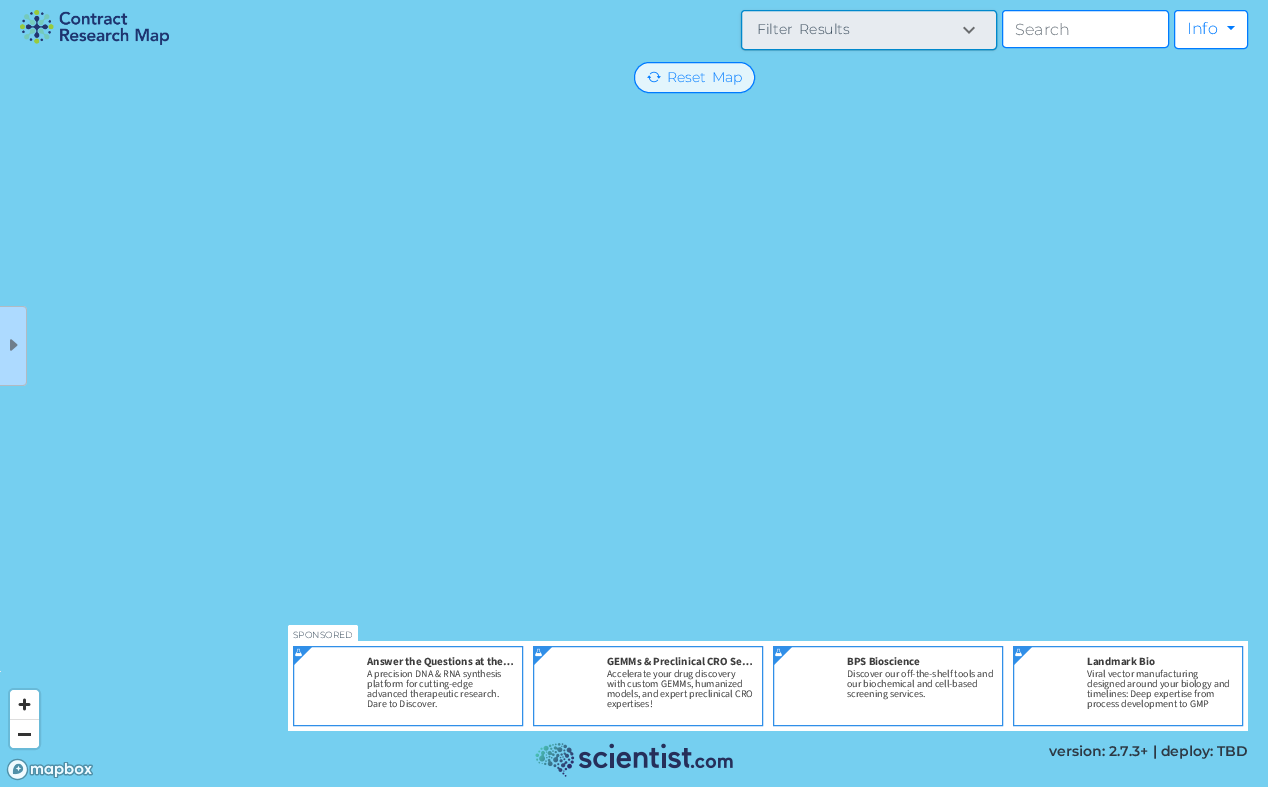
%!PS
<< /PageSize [1268 787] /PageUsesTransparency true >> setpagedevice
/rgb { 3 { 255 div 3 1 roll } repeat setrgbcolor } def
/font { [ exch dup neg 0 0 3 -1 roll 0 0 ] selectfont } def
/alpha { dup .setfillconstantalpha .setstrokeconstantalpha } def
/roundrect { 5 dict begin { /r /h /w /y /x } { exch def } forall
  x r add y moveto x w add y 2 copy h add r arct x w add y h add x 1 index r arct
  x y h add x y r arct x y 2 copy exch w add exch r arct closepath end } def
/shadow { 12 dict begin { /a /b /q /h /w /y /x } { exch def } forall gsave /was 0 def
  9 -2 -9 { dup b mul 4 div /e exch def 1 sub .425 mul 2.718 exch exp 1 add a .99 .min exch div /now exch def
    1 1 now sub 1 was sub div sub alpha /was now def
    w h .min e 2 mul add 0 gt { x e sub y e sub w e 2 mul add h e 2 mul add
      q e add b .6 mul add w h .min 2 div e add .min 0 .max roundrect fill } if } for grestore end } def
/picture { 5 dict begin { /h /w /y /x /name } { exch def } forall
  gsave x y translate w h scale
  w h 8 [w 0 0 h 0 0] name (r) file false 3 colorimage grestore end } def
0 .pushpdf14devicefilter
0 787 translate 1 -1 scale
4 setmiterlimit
117 207 240 rgb
0 0 1268 787 rectfill
(img/1.rgb) 20 10 149 35 picture
0 0 0 rgb
741 11 256 39 4 1.5 0.12 shadow
741 11 256 39 4 0.5 0.14 shadow
742 13 254 37 3 0.5 0.2 shadow
231 235 240 rgb
741.5 10.5 255 39 3.5 roundrect gsave fill grestore
0 136 204 rgb
stroke
(img/2.rgb) 963 26 12 8 picture
255 255 255 rgb
1002.5 10.5 166 37 3.5 roundrect gsave fill grestore
0 123 255 rgb
stroke
255 255 255 rgb
1174.5 10.5 73 38 3.5 roundrect gsave fill grestore
0 123 255 rgb
stroke
1227 26 moveto 1235 26 lineto 1231 30 lineto closepath fill
227 245 252 rgb
634.5 62.5 120 30 14.5 roundrect gsave fill grestore
0 123 255 rgb
stroke
(img/3.rgb) 647 71 14 12 picture
173 218 255 rgb
0 306 moveto 23 306 lineto 25 306 27 308 27 310 curveto 27 382 lineto 27 384 25 386 23 386 curveto 0 386 lineto closepath fill
178 186 194 rgb
0 306 moveto 23 306 lineto 25 306 27 308 27 310 curveto 27 382 lineto 27 384 25 386 23 386 curveto 0 386 lineto closepath 0 307 moveto 23 307 lineto 25 307 26 308 26 310 curveto 26 382 lineto 26 384 25 385 23 385 curveto 0 385 lineto closepath eofill
(img/4.rgb) 10 339 8 12 picture
231 235 240 rgb
0 671 1 1 rectfill
255 255 255 rgb
288 641 960 90 rectfill
290 625 moveto 356 625 lineto 357 625 358 626 358 627 curveto 358 642 lineto 288 642 lineto 288 627 lineto 288 626 289 625 290 625 curveto closepath fill
48 143 232 rgb
293.5 646.5 229 79 rectstroke
294 647 moveto 294 665 lineto 312 647 lineto closepath fill
(img/5.rgb) 295 648 7 9 picture
533.5 646.5 229 79 rectstroke
534 647 moveto 534 665 lineto 552 647 lineto closepath fill
(img/5.rgb) 535 648 7 9 picture
773.5 646.5 229 79 rectstroke
774 647 moveto 774 665 lineto 792 647 lineto closepath fill
(img/5.rgb) 775 648 7 9 picture
1013.5 646.5 229 79 rectstroke
1014 647 moveto 1014 665 lineto 1032 647 lineto closepath fill
(img/5.rgb) 1015 648 7 9 picture
105 186 216 rgb
2 setlinewidth
9 689 31 60 5 roundrect stroke
255 255 255 rgb
10 690 29 58 4 roundrect fill
(img/6.rgb) 18 698 13 13 picture
221 221 221 rgb
10 719 29 1 rectfill
51 51 51 rgb
18 733 13 3 rectfill
(img/7.rgb) 6 758 87 23 picture
(img/8.rgb) 535 743 198 34 picture
/Montserrat-Light 14 font
62 80 96 rgb
757 34 moveto 3 0 32 (Filter Results) widthshow
/Montserrat-Light 16 font
108 117 125 rgb
1015 35 moveto (Search) show
0 123 255 rgb
1187 34 moveto (Info) show
/Montserrat-Light 14 font
667 82 moveto 2 0 32 (Reset Map) widthshow
/Montserrat-Light 9 font
62 80 96 rgb
293 638 moveto (SPONSORED) show
/SourceSans3-Bold 11 font
61 61 61 rgb
367 665 moveto (Answer the Questions at the…) show
/SourceSans3-Regular 10 font
[
  [(A precision DNA & RNA synthesis) 367 677]
  [(platform for cutting-edge) 367 687]
  [(advanced therapeutic research.) 367 697]
  [(Dare to Discover.) 367 707]
] { aload pop moveto show } forall
/SourceSans3-Bold 11 font
607 665 moveto (GEMMs & Preclinical CRO Se…) show
/SourceSans3-Regular 10 font
[
  [(Accelerate your drug discovery) 607 677]
  [(with custom GEMMs, humanized) 607 687]
  [(models, and expert preclinical CRO) 607 697]
  [(expertises!) 607 707]
] { aload pop moveto show } forall
/SourceSans3-Bold 11 font
847 665 moveto (BPS Bioscience) show
/SourceSans3-Regular 10 font
[
  [(Discover our off-the-shelf tools and) 847 677]
  [(our biochemical and cell-based) 847 687]
  [(screening services.) 847 697]
] { aload pop moveto show } forall
/SourceSans3-Bold 11 font
1087 665 moveto (Landmark Bio) show
/SourceSans3-Regular 10 font
[
  [(Viral vector manufacturing) 1087 677]
  [(designed around your biology and) 1087 687]
  [(timelines: Deep expertise from) 1087 697]
  [(process development to GMP) 1087 707]
] { aload pop moveto show } forall
/Montserrat-SemiBold 14 font
45 56 67 rgb
1049 756 moveto (version: 2.7.3+ | deploy: TBD) show
.poppdf14devicefilter showpage
